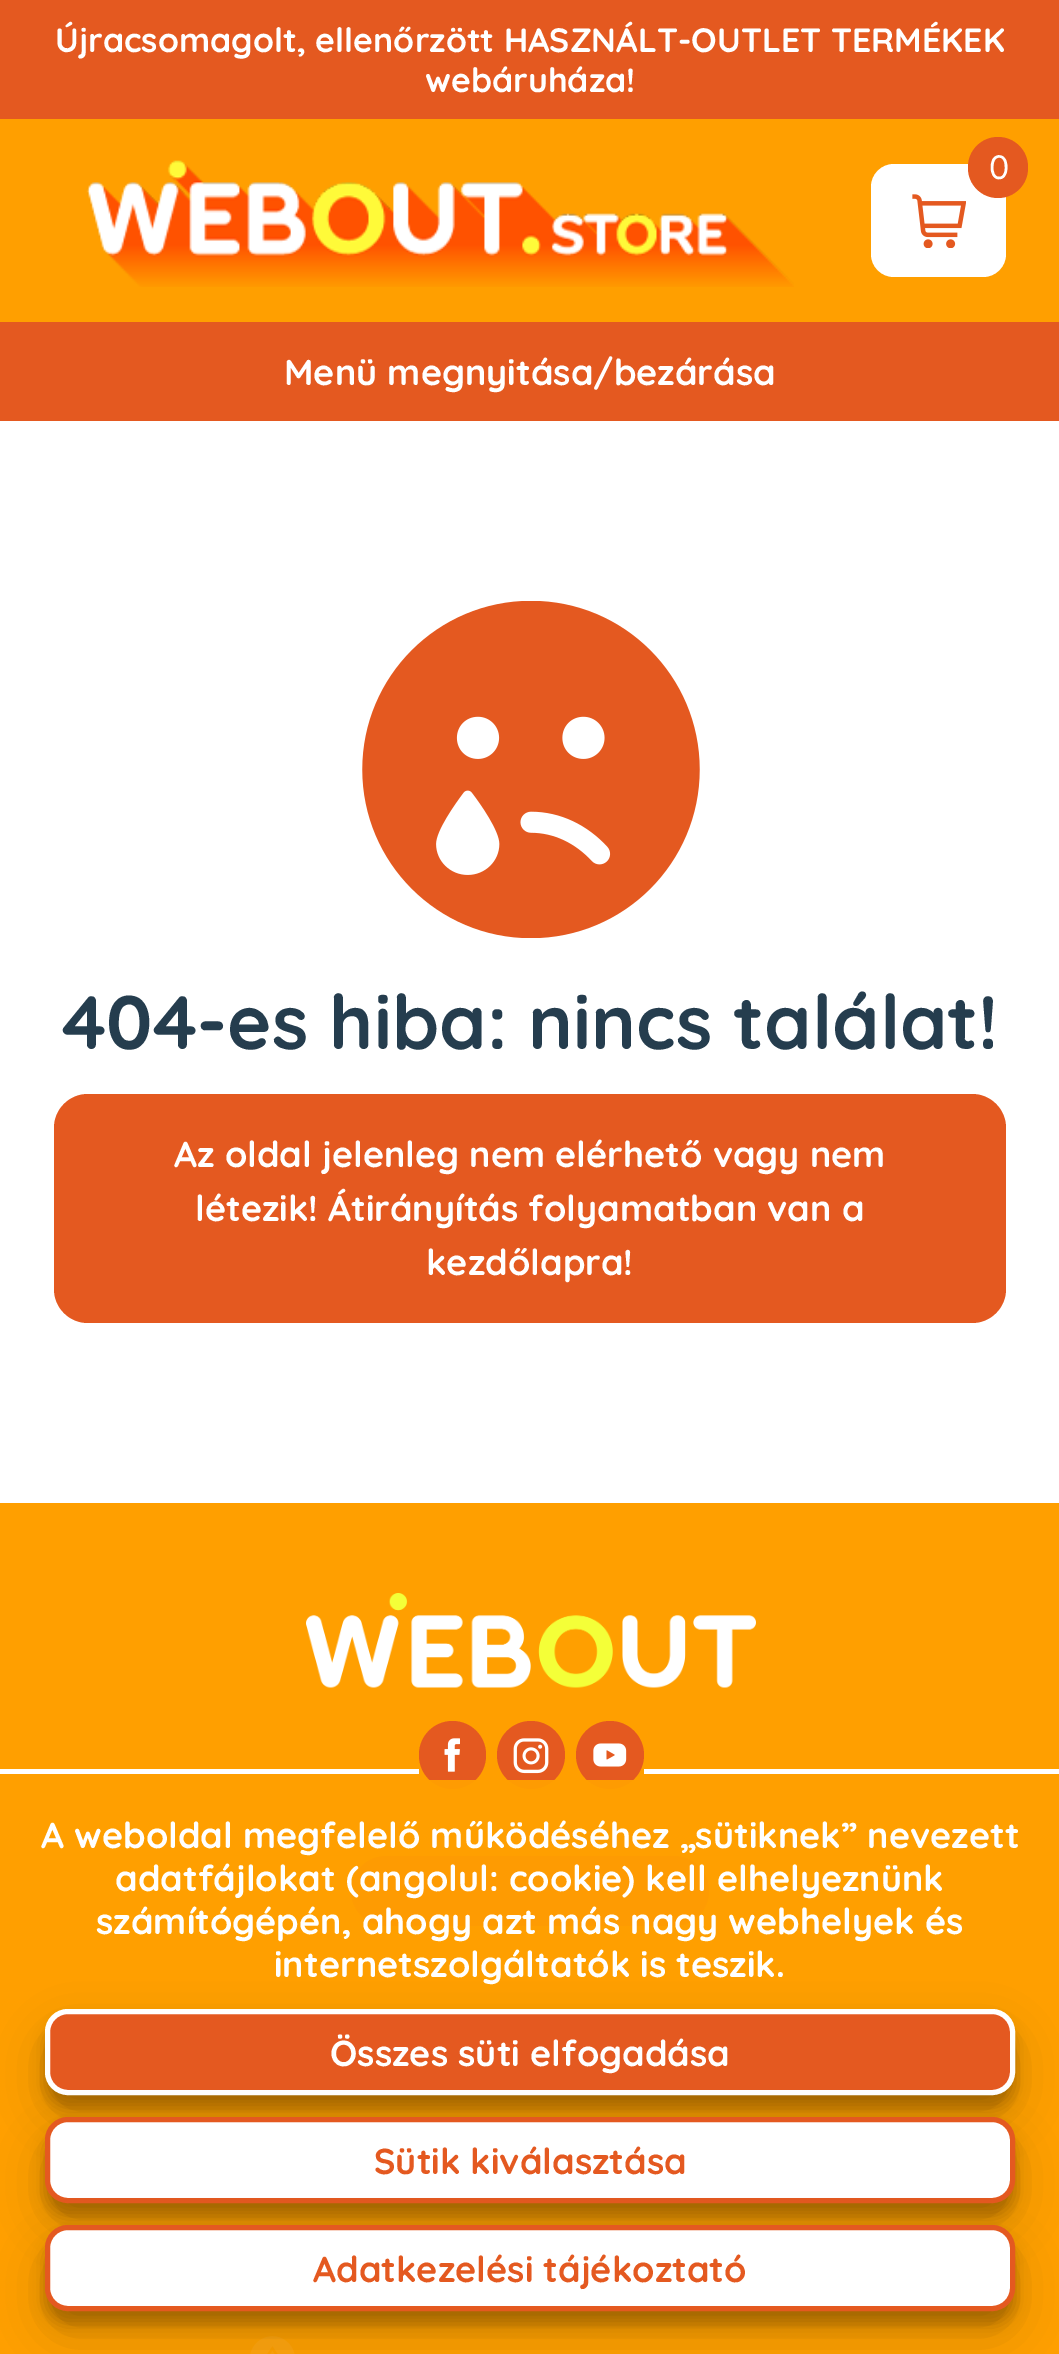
%!PS
<< /PageSize [1059 2354] /PageUsesTransparency true >> setpagedevice
/rgb { 3 { 255 div 3 1 roll } repeat setrgbcolor } def
/font { [ exch dup neg 0 0 3 -1 roll 0 0 ] selectfont } def
/alpha { dup .setfillconstantalpha .setstrokeconstantalpha } def
/circle { newpath 0 360 arc closepath } def
/roundrect { 5 dict begin { /r /h /w /y /x } { exch def } forall
  x r add y moveto x w add y 2 copy h add r arct x w add y h add x 1 index r arct
  x y h add x y r arct x y 2 copy exch w add exch r arct closepath end } def
/shadow { 12 dict begin { /a /b /q /h /w /y /x } { exch def } forall gsave /was 0 def
  9 -2 -9 { dup b mul 4 div /e exch def 1 sub .425 mul 2.718 exch exp 1 add a .99 .min exch div /now exch def
    1 1 now sub 1 was sub div sub alpha /was now def
    w h .min e 2 mul add 0 gt { x e sub y e sub w e 2 mul add h e 2 mul add
      q e add b .6 mul add w h .min 2 div e add .min 0 .max roundrect fill } if } for grestore end } def
/picture { 5 dict begin { /h /w /y /x /name } { exch def } forall
  gsave x y translate w h scale
  w h 8 [w 0 0 h 0 0] name (r) file false 3 colorimage grestore end } def
0 .pushpdf14devicefilter
0 2354 translate 1 -1 scale
4 setmiterlimit
255 255 255 rgb
0 0 1059 2354 rectfill
228 89 32 rgb
0 0 1059 119 rectfill
255 159 0 rgb
0 119 1059 203 rectfill
(img/1.rgb) 86 160 708 127 picture
255 255 255 rgb
871 164 135 113 23 roundrect fill
228 89 32 rgb
968 137 60 61 30 roundrect fill
(img/2.rgb) 912 194 54 54 picture
0 322 1059 99 rectfill
(img/3.rgb) 362 601 338 337 picture
54 1094 952 229 34 roundrect fill
255 159 0 rgb
0 1503 1059 851 rectfill
(img/4.rgb) 306 1593 450 95 picture
255 255 255 rgb
0 1769 1059 5 rectfill
255 159 0 rgb
419 1769 225 5 rectfill
228 89 32 rgb
419 1721 67 68 33.5 roundrect fill
(img/5.rgb) 444 1738 16 34 picture
531 1755 34 circle fill
(img/6.rgb) 513 1738 36 36 picture
610 1755 34 circle fill
(img/7.rgb) 593 1743 34 24 picture
351 1856 358 70 35 roundrect fill
(img/8.rgb) 250 2336 45 18 picture
0.95 alpha
255 159 0 rgb
250 1780 459 574 rectfill
1 alpha
0 0 0 rgb
45 2023 970 85 23 7 0.23 shadow
45 2032 970 85 23 22.5 0.19 shadow
228 89 32 rgb
47.5 2011.5 965 81 20.5 roundrect gsave fill grestore
255 255 255 rgb
5 setlinewidth
stroke
0 0 0 rgb
45 2131 970 85 23 7 0.23 shadow
45 2140 970 85 23 22.5 0.19 shadow
255 255 255 rgb
47.5 2119.5 965 81 20.5 roundrect gsave fill grestore
228 89 32 rgb
stroke
0 0 0 rgb
45 2239 970 85 23 7 0.23 shadow
45 2248 970 85 23 22.5 0.19 shadow
255 255 255 rgb
47.5 2227.5 965 81 20.5 roundrect gsave fill grestore
228 89 32 rgb
stroke
/Quicksand-Bold 33.75 font
255 255 255 rgb
55 52 moveto (Újracsomagolt, ellenőrzött HASZNÁLT-OUTLET TERMÉKEK) show
425 92 moveto (webáruháza!) show
/Quicksand-Medium 33.75 font
989 179 moveto -2 0 (0) ashow
/Quicksand-Bold 36 font
284 385 moveto (Menü megnyitása/bezárása) show
/Quicksand-Bold 75.6 font
37 61 78 rgb
62 1049 moveto (404-es hiba: nincs találat!) show
/Quicksand-Bold 36 font
255 255 255 rgb
[
  [(Az oldal jelenleg nem elérhető vagy nem) 174 1167]
  [(létezik! Átirányítás folyamatban van a) 195 1221]
  [(kezdőlapra!) 426 1275]
  [(A weboldal megfelelő működéséhez „sütiknek” nevezett) 41 1848]
  [(adatfájlokat \(angolul: cookie\) kell elhelyeznünk) 115 1891]
  [(számítógépén, ahogy azt más nagy webhelyek és) 96 1934]
  [(internetszolgáltatók is teszik.) 274 1977]
  [(Összes süti elfogadása) 330 2066]
] { aload pop moveto show } forall
228 89 32 rgb
374 2174 moveto (Sütik kiválasztása) show
313 2282 moveto (Adatkezelési tájékoztató) show
.poppdf14devicefilter showpage
